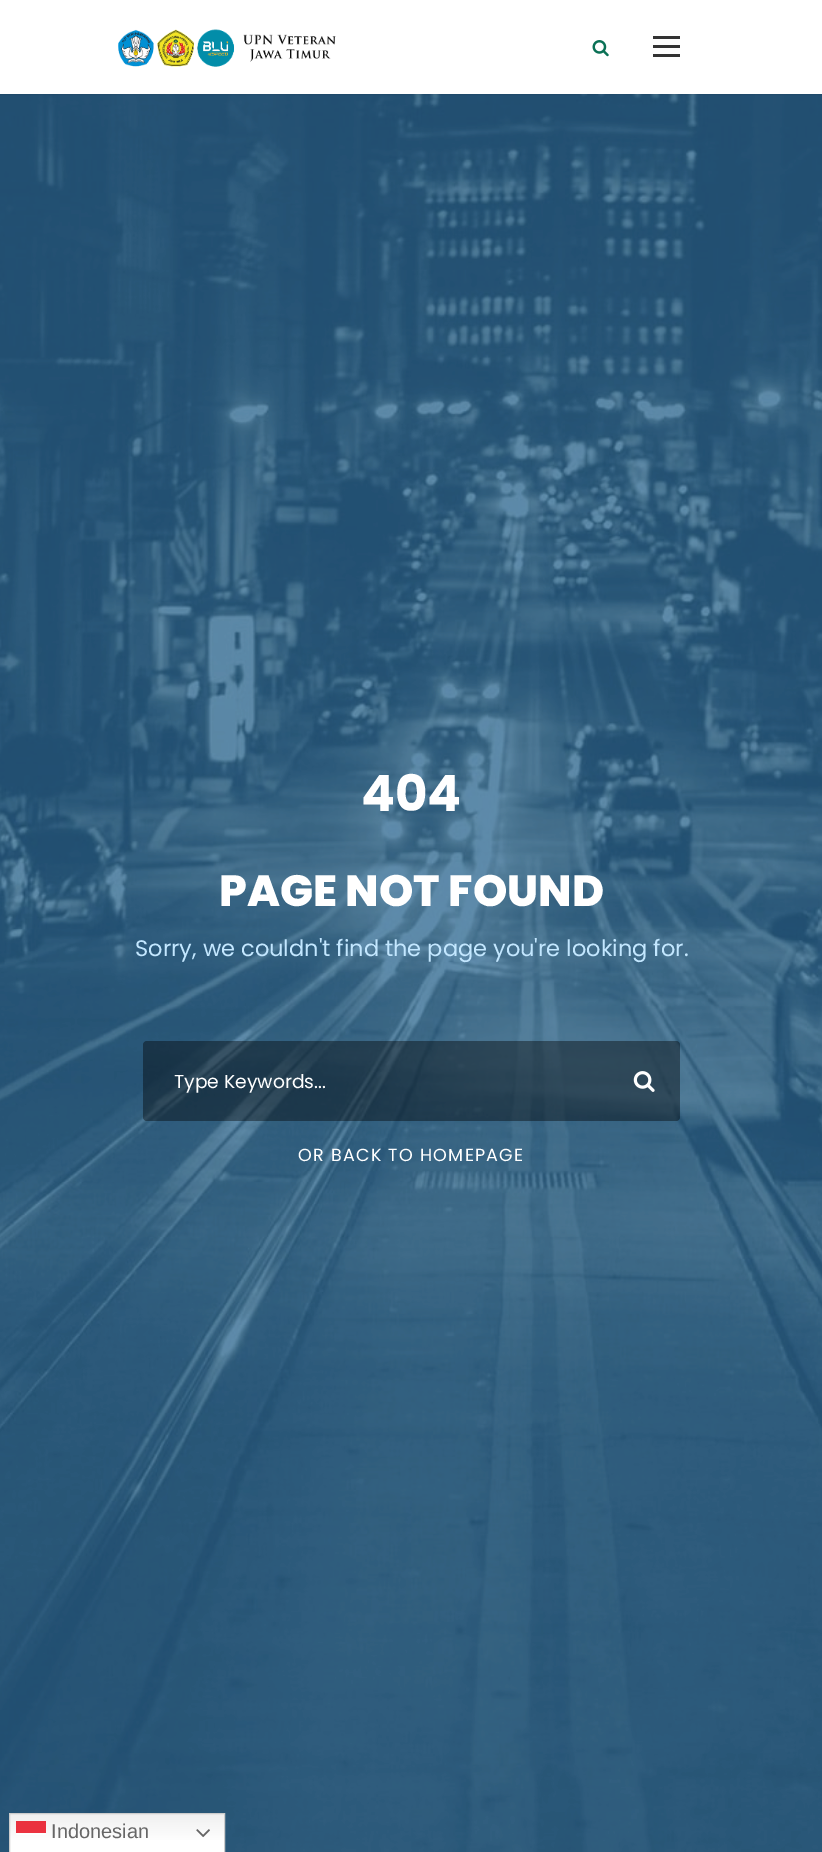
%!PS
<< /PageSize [822 1852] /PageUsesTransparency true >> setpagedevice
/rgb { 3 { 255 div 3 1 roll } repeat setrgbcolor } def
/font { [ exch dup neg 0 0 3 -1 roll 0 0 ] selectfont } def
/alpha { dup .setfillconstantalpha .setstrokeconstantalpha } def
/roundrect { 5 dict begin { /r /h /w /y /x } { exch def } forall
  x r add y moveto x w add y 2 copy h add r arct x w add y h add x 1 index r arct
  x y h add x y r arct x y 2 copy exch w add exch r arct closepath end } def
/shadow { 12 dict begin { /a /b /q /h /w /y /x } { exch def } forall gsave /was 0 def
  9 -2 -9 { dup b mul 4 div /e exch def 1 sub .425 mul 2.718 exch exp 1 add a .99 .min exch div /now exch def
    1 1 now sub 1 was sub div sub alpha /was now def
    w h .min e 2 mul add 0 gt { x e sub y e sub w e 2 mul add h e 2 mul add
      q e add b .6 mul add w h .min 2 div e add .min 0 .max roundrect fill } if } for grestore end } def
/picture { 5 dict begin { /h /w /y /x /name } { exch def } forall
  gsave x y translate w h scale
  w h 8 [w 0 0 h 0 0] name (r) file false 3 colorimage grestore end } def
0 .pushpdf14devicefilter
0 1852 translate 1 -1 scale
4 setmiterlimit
35 97 142 rgb
0 0 822 1852 rectfill
(img/3.rgb) 0 94 822 1758 picture
0 0 0 rgb
0 1 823 94 0 1 0.1 shadow
255 255 255 rgb
0 0 822 94 rectfill
(img/1.rgb) 118 29 218 38 picture
(img/2.rgb) 592 40 17 17 picture
[
  [653 36 27 3 51 51 51]
  [653 45 27 3 51 51 51]
  [653 54 27 3 51 51 51]
] { aload pop rgb rectfill } forall
0.4 alpha
0 0 0 rgb
143 1041 537 80 4 roundrect fill
1 alpha
(img/4.rgb) 633 1071 22 21 picture
gsave 10 1814 moveto 224 1814 lineto 224 1852 lineto 10 1852 lineto closepath clip newpath
<< /ShadingType 2 /ColorSpace /DeviceRGB /Coords [117 1813 117 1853] /Extend [true true] /Function << /FunctionType 3 /Domain [0 1] /Functions [<< /FunctionType 2 /Domain [0 1] /C0 [0.937 0.937 0.937] /C1 [1 1 1] /N 1 >> << /FunctionType 2 /Domain [0 1] /C0 [1 1 1] /C1 [1 1 1] /N 1 >>] /Bounds [0.7] /Encode [0 1 0 1] >> >> shfill grestore
204 204 204 rgb
9.5 1813.5 215 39 rectstroke
0.8 alpha
231 0 17 rgb
16 1821 30 12 rectfill
1 alpha
(img/5.rgb) 196 1829 14 9 picture
0.8 alpha
255 255 255 rgb
16 1833 30 2 rectfill
/Poppins-Bold 50 font
1 alpha
361 811 moveto (404) show
/Poppins-ExtraBold 43.75 font
219 906 moveto (PAGE NOT FOUND) show
/Poppins-Regular 22.5 font
195 231 255 rgb
135 956 moveto (Sorry, we couldn't find the page you're looking for.) show
/Poppins-Regular 18.75 font
255 255 255 rgb
174 1088 moveto (Type Keywords...) show
/Poppins-Regular 17.5 font
298 1161 moveto 1.25 0 (OR BACK TO HOMEPAGE) ashow
/LiberationSans-Regular 20 font
102 102 102 rgb
51 1838 moveto (Indonesian) show
.poppdf14devicefilter showpage
